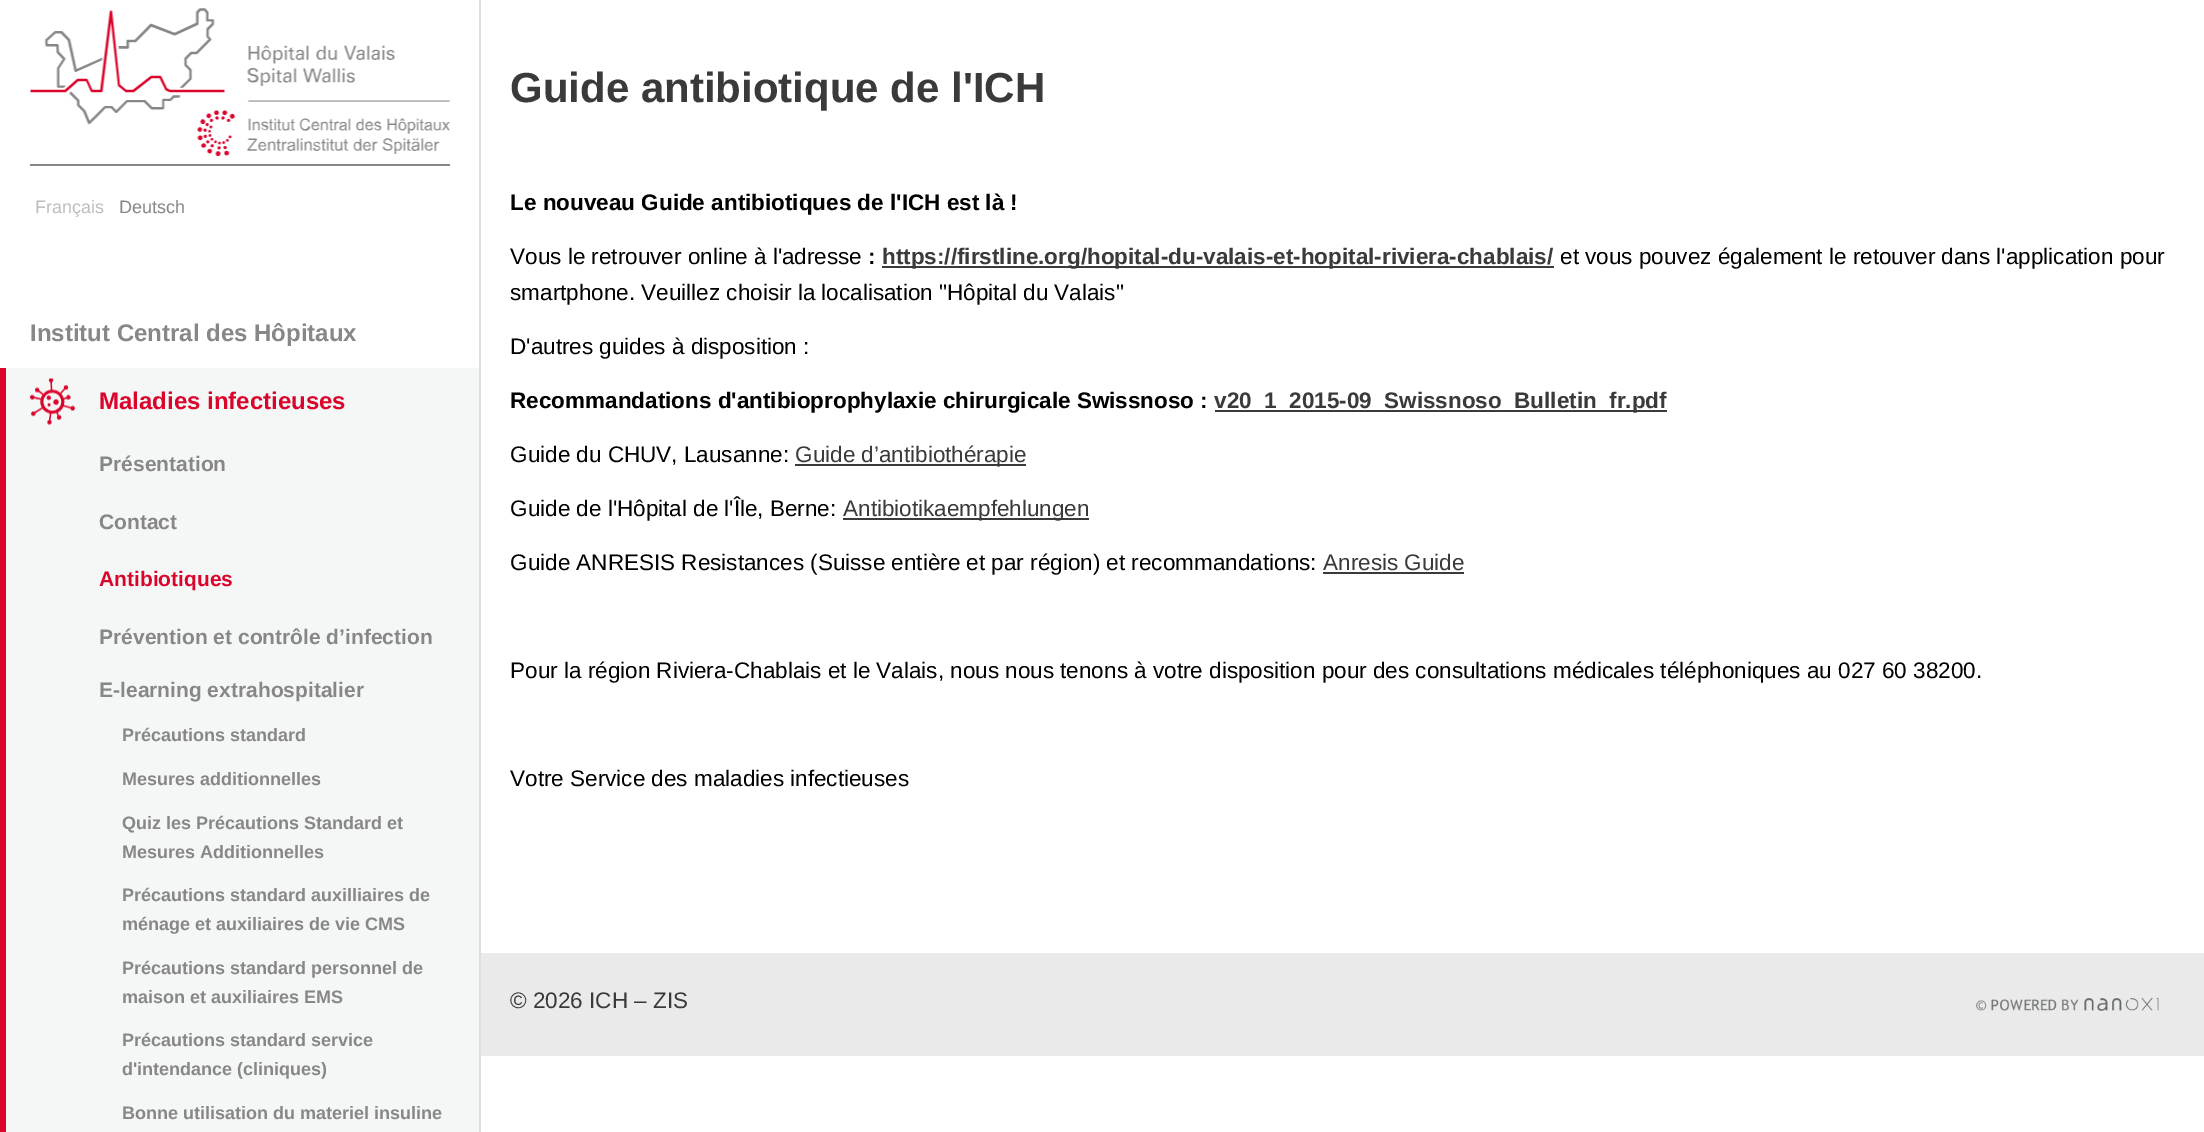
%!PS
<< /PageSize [2204 1132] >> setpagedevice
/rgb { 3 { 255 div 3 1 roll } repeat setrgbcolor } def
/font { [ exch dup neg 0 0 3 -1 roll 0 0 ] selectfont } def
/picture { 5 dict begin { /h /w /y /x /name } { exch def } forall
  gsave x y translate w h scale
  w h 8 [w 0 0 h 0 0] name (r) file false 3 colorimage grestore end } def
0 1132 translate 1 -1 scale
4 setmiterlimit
255 255 255 rgb
0 0 2204 1132 rectfill
223 223 223 rgb
479 0 2 1132 rectfill
(img/1.rgb) 30 8 421 148 picture
[
  [30 164 420 2 135 135 135]
  [6 368 473 764 245 247 247]
  [0 368 6 764 219 5 44]
] { aload pop rgb rectfill } forall
(img/2.rgb) 30 378 45 47 picture
[
  [882 266 672 2 58 58 58]
  [1215 410 452 2 58 58 58]
  [795 464 231 2 58 58 58]
  [843 518 246 2 58 58 58]
  [1323 572 141 2 58 58 58]
  [481 953 1723 103 234 234 234]
] { aload pop rgb rectfill } forall
(img/3.rgb) 1976 997 183 14 picture
/LiberationSans-Regular 18 font
190 189 189 rgb
35 213 moveto (Français) show
135 135 135 rgb
119 213 moveto (Deutsch) show
/LiberationSans-Bold 24 font
30 341 moveto (Institut Central des Hôpitaux) show
219 5 44 rgb
99 409 moveto (Maladies infectieuses) show
/LiberationSans-Bold 21 font
135 135 135 rgb
99 471 moveto (Présentation) show
99 529 moveto (Contact) show
219 5 44 rgb
99 586 moveto (Antibiotiques) show
135 135 135 rgb
99 644 moveto (Prévention et contrôle d’infection) show
99 697 moveto (E-learning extrahospitalier) show
/LiberationSans-Bold 18 font
[
  [(Précautions standard) 122 741]
  [(Mesures additionnelles) 122 785]
  [(Quiz les Précautions Standard et) 122 829]
  [(Mesures Additionnelles) 122 858]
  [(Précautions standard auxilliaires de) 122 901]
  [(ménage et auxiliaires de vie CMS) 122 930]
  [(Précautions standard personnel de) 122 974]
  [(maison et auxiliaires EMS) 122 1003]
  [(Précautions standard service) 122 1046]
  [(d'intendance \(cliniques\)) 122 1075]
  [(Bonne utilisation du materiel insuline) 122 1119]
] { aload pop moveto show } forall
/LiberationSans-Bold 42 font
58 58 58 rgb
510 102 moveto (Guide antibiotique de l'ICH) show
/LiberationSans-Bold 22.5 font
0 0 0 rgb
510 210 moveto (Le nouveau Guide antibiotiques de l'ICH est là !) show
/LiberationSans-Regular 22.5 font
510 264 moveto (Vous le retrouver online à l'adresse) show
/LiberationSans-Bold 22.5 font
868 264 moveto (:) show
58 58 58 rgb
882 264 moveto (https://firstline.org/hopital-du-valais-et-hopital-riviera-chablais/) show
/LiberationSans-Regular 22.5 font
0 0 0 rgb
[
  [(et vous pouvez également le retouver dans l'application pour) 1560 264]
  [(smartphone. Veuillez choisir la localisation "Hôpital du Valais") 510 300]
  [(D'autres guides à disposition :) 510 354]
] { aload pop moveto show } forall
/LiberationSans-Bold 22.5 font
510 408 moveto (Recommandations d'antibioprophylaxie chirurgicale Swissnoso :) show
58 58 58 rgb
1214 408 moveto (v20_1_2015-09_Swissnoso_Bulletin_fr.pdf) show
/LiberationSans-Regular 22.5 font
0 0 0 rgb
510 462 moveto (Guide du CHUV, Lausanne:) show
58 58 58 rgb
795 462 moveto (Guide d’antibiothérapie) show
0 0 0 rgb
510 516 moveto (Guide de l'Hôpital de l'Île, Berne:) show
58 58 58 rgb
843 516 moveto (Antibiotikaempfehlungen) show
0 0 0 rgb
510 570 moveto (Guide ANRESIS Resistances \(Suisse entière et par région\) et recommandations:) show
58 58 58 rgb
1323 570 moveto (Anresis Guide) show
0 0 0 rgb
510 678 moveto (Pour la région Riviera-Chablais et le Valais, nous nous tenons à votre disposition pour des consultations médicales téléphoniques au 027 60 38200.) show
510 786 moveto (Votre Service des maladies infectieuses) show
58 58 58 rgb
510 1008 moveto (© 2026 ICH – ZIS) show
showpage
